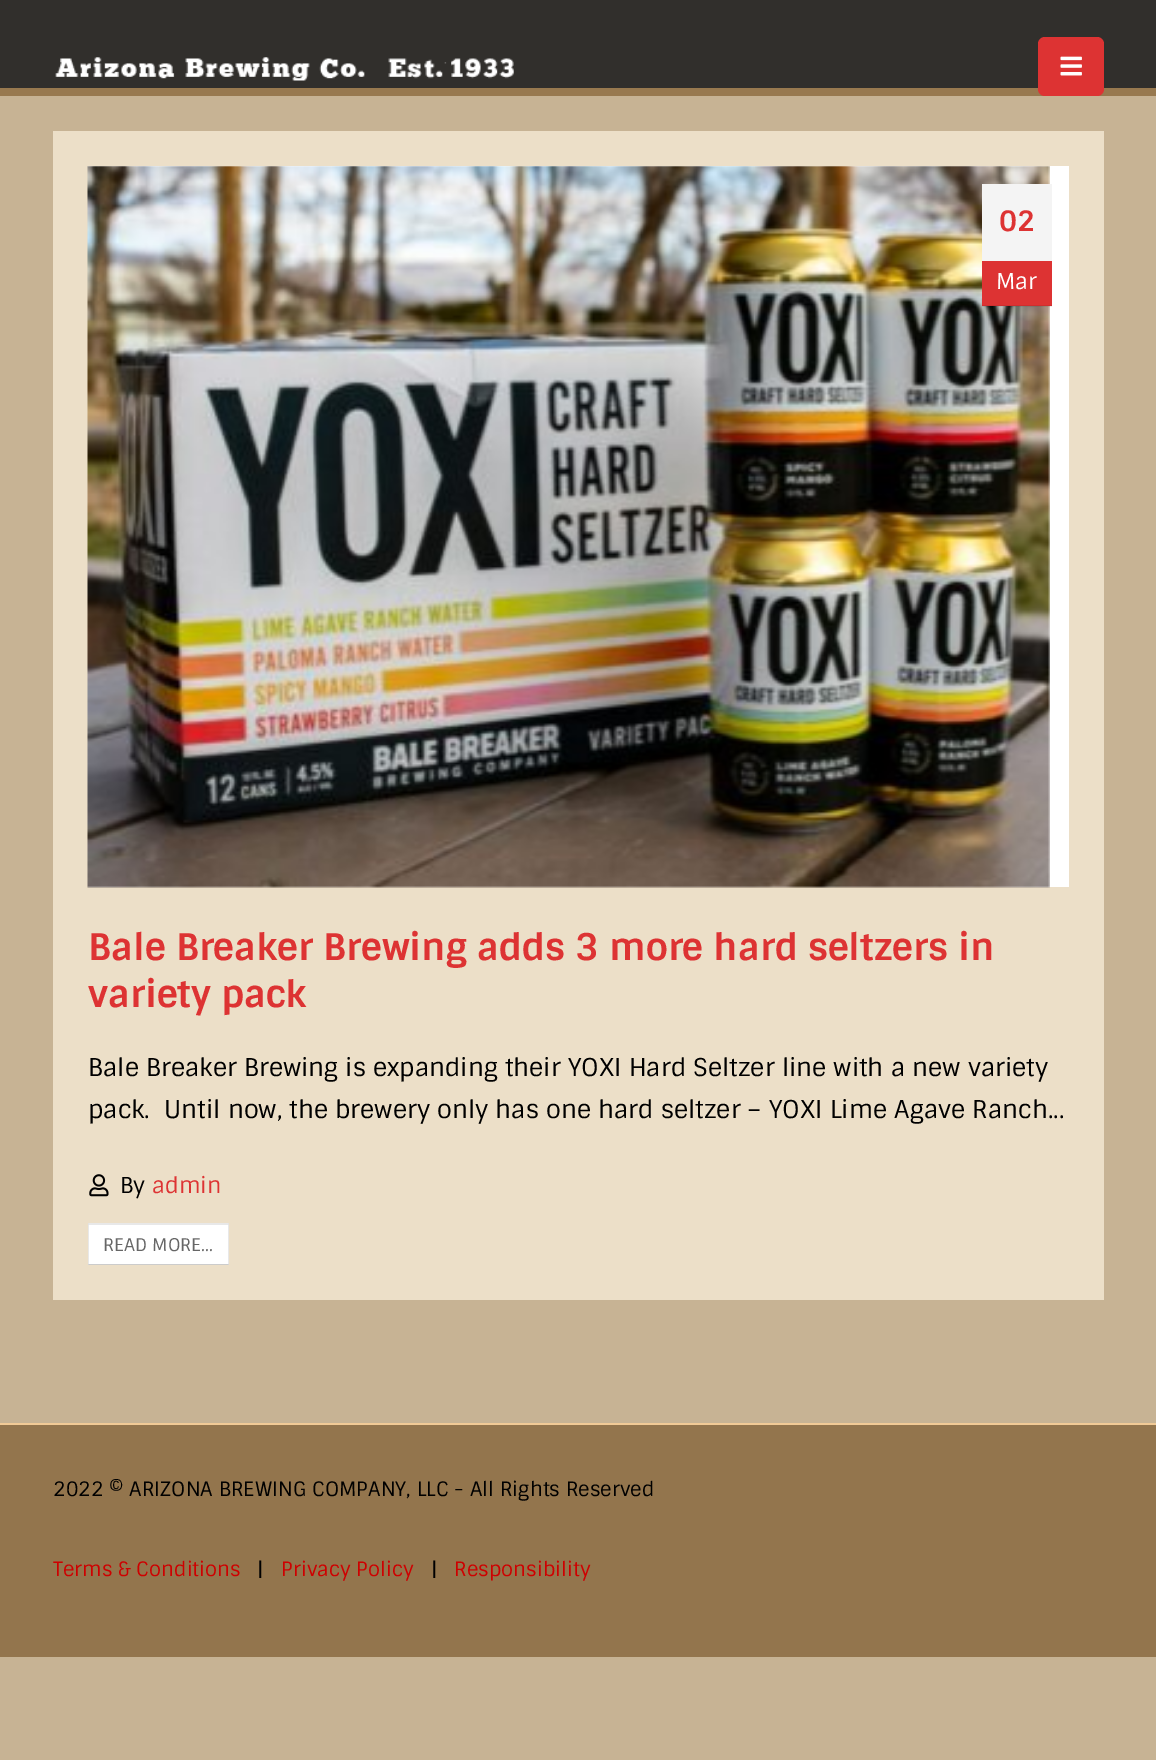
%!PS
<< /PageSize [1156 1760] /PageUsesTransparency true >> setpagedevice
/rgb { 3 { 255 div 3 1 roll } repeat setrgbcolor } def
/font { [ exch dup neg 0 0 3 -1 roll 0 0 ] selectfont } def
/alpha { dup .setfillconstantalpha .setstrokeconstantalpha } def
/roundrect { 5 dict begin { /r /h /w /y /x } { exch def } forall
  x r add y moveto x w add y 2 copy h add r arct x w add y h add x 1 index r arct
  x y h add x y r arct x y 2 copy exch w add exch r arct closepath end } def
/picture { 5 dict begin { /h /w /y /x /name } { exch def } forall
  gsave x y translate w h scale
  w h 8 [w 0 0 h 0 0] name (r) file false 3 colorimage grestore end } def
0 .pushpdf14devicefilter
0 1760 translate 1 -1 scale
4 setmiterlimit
199 179 148 rgb
0 0 1156 1760 rectfill
49 47 44 rgb
0 0 1156 88 rectfill
152 121 79 rgb
0 88 1156 8 rectfill
(img/1.rgb) 55 57 459 24 picture
221 51 51 rgb
1038 37 66 59 7 roundrect fill
(img/2.rgb) 1060 56 22 20 picture
236 223 200 rgb
53 131 1051 1169 rectfill
255 255 255 rgb
88 166 981 721 rectfill
(img/3.rgb) 87 166 963 722 picture
[
  [982 184 70 77 244 244 244]
  [982 261 70 45 221 51 51]
] { aload pop rgb rectfill } forall
0.07 alpha
[
  [982 305 70 2 0 0 0]
] { aload pop rgb rectfill } forall
1 alpha
(img/4.rgb) 89 1174 20 23 picture
255 255 255 rgb
88 1223 141 42 rectfill
232 232 232 rgb
88 1223 moveto 229 1223 lineto 228 1225 lineto 89 1225 lineto closepath fill
0.09 alpha
0 0 0 rgb
229 1223 moveto 229 1265 lineto 228 1264 lineto 228 1225 lineto closepath fill
0.2 alpha
229 1265 moveto 88 1265 lineto 89 1264 lineto 228 1264 lineto closepath fill
0.09 alpha
88 1265 moveto 88 1223 lineto 89 1225 lineto 89 1264 lineto closepath fill
1 alpha
147 117 77 rgb
0 1425 1156 232 rectfill
241 202 150 rgb
0 1423 1156 2 rectfill
/Sintony-Bold 28 font
221 51 51 rgb
999 231 moveto (02) show
/Sintony-Regular 22 font
255 255 255 rgb
996 289 moveto (Mar) show
/Sintony-Bold 36.75 font
221 51 51 rgb
88 960 moveto (Bale Breaker Brewing adds 3 more hard seltzers in) show
88 1007 moveto (variety pack) show
/Sintony-Regular 24.5 font
0 0 0 rgb
88 1076 moveto (Bale Breaker Brewing is expanding their YOXI Hard Seltzer line with a new variety) show
88 1118 moveto (pack.  Until now, the brewery only has one hard seltzer – YOXI Lime Agave Ranch...) show
/Sintony-Regular 22 font
120 1193 moveto (By) show
221 51 51 rgb
152 1193 moveto (admin) show
/Sintony-Regular 17.5 font
102 102 102 rgb
103 1251 moveto (READ MORE...) show
/Sintony-Regular 19.85 font
0 0 0 rgb
53 1496 moveto (2022 © ARIZONA BREWING COMPANY, LLC - All Rights Reserved) show
206 0 0 rgb
53 1576 moveto (Terms & Conditions) show
0 0 0 rgb
257 1576 moveto (|) show
206 0 0 rgb
281 1576 moveto (Privacy Policy) show
0 0 0 rgb
431 1576 moveto (|) show
206 0 0 rgb
454 1576 moveto (Responsibility) show
.poppdf14devicefilter showpage
